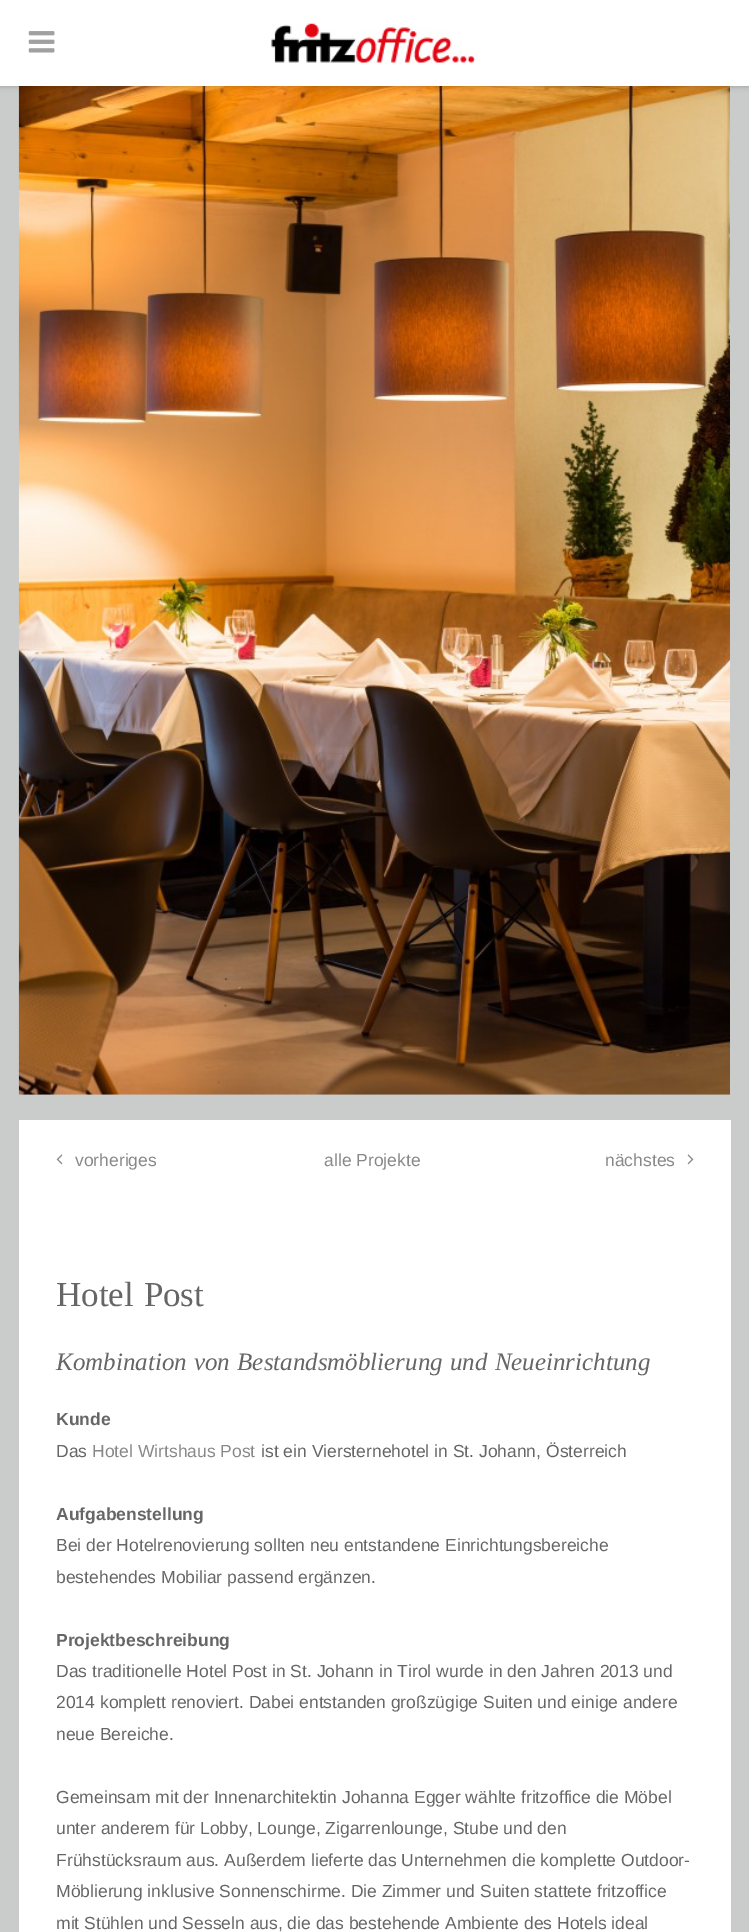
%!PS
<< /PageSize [749 1932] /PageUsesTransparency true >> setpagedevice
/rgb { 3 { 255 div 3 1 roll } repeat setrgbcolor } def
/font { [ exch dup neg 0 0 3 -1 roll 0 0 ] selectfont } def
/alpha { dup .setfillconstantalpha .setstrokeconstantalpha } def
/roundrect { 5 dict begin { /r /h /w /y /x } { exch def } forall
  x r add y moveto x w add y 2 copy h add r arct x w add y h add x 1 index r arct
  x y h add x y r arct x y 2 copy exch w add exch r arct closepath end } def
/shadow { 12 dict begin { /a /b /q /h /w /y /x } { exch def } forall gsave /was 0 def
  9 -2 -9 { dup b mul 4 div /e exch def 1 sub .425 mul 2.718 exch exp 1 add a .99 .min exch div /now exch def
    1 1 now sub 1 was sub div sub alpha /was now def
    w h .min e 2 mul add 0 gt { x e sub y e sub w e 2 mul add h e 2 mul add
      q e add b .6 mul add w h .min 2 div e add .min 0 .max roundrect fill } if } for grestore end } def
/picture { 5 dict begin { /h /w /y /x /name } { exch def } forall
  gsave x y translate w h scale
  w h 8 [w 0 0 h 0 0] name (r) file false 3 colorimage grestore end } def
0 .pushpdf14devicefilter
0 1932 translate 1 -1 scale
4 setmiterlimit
202 203 203 rgb
0 0 749 1932 rectfill
(img/3.rgb) 18 86 712 1009 picture
0 0 0 rgb
0 0 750 86 0 3 0.25 shadow
255 255 255 rgb
0 0 749 86 rectfill
(img/1.rgb) 28 31 27 22 picture
(img/2.rgb) 271 23 205 40 picture
19 1120 712 812 rectfill
(img/4.rgb) 56 1154 7 11 picture
(img/5.rgb) 687 1154 7 11 picture
/LiberationSans-Regular 17.5 font
136 136 136 rgb
[
  [(vorheriges) 75 1166]
  [(alle Projekte) 324 1166]
  [(nächstes) 605 1166]
] { aload pop moveto show } forall
/LiberationSerif-Regular 35 font
102 102 102 rgb
56 1306 moveto 1 0 32 (Hotel Post) widthshow
/LiberationSerif-Italic 25 font
56 1370 moveto 1 0 32 (Kombination von Bestandsmöblierung und Neueinrichtung) widthshow
/LiberationSans-Bold 17.5 font
56 1425 moveto (Kunde) show
/LiberationSans-Regular 17.5 font
56 1457 moveto (Das) show
136 136 136 rgb
92 1457 moveto (Hotel Wirtshaus Post) show
102 102 102 rgb
261 1457 moveto (ist ein Viersternehotel in St. Johann, Österreich) show
/LiberationSans-Bold 17.5 font
56 1520 moveto (Aufgabenstellung) show
/LiberationSans-Regular 17.5 font
56 1551 moveto (Bei der Hotelrenovierung sollten neu entstandene Einrichtungsbereiche) show
56 1583 moveto (bestehendes Mobiliar passend ergänzen.) show
/LiberationSans-Bold 17.5 font
56 1646 moveto (Projektbeschreibung) show
/LiberationSans-Regular 17.5 font
[
  [(Das traditionelle Hotel Post in St. Johann in Tirol wurde in den Jahren 2013 und) 56 1677]
  [(2014 komplett renoviert. Dabei entstanden großzügige Suiten und einige andere) 56 1708]
  [(neue Bereiche.) 56 1740]
  [(Gemeinsam mit der Innenarchitektin Johanna Egger wählte fritzoffice die Möbel) 56 1803]
  [(unter anderem für Lobby, Lounge, Zigarrenlounge, Stube und den) 56 1834]
  [(Frühstücksraum aus. Außerdem lieferte das Unternehmen die komplette Outdoor-) 56 1866]
  [(Möblierung inklusive Sonnenschirme. Die Zimmer und Suiten stattete fritzoffice) 56 1897]
  [(mit Stühlen und Sesseln aus, die das bestehende Ambiente des Hotels ideal) 56 1929]
] { aload pop moveto show } forall
.poppdf14devicefilter showpage
